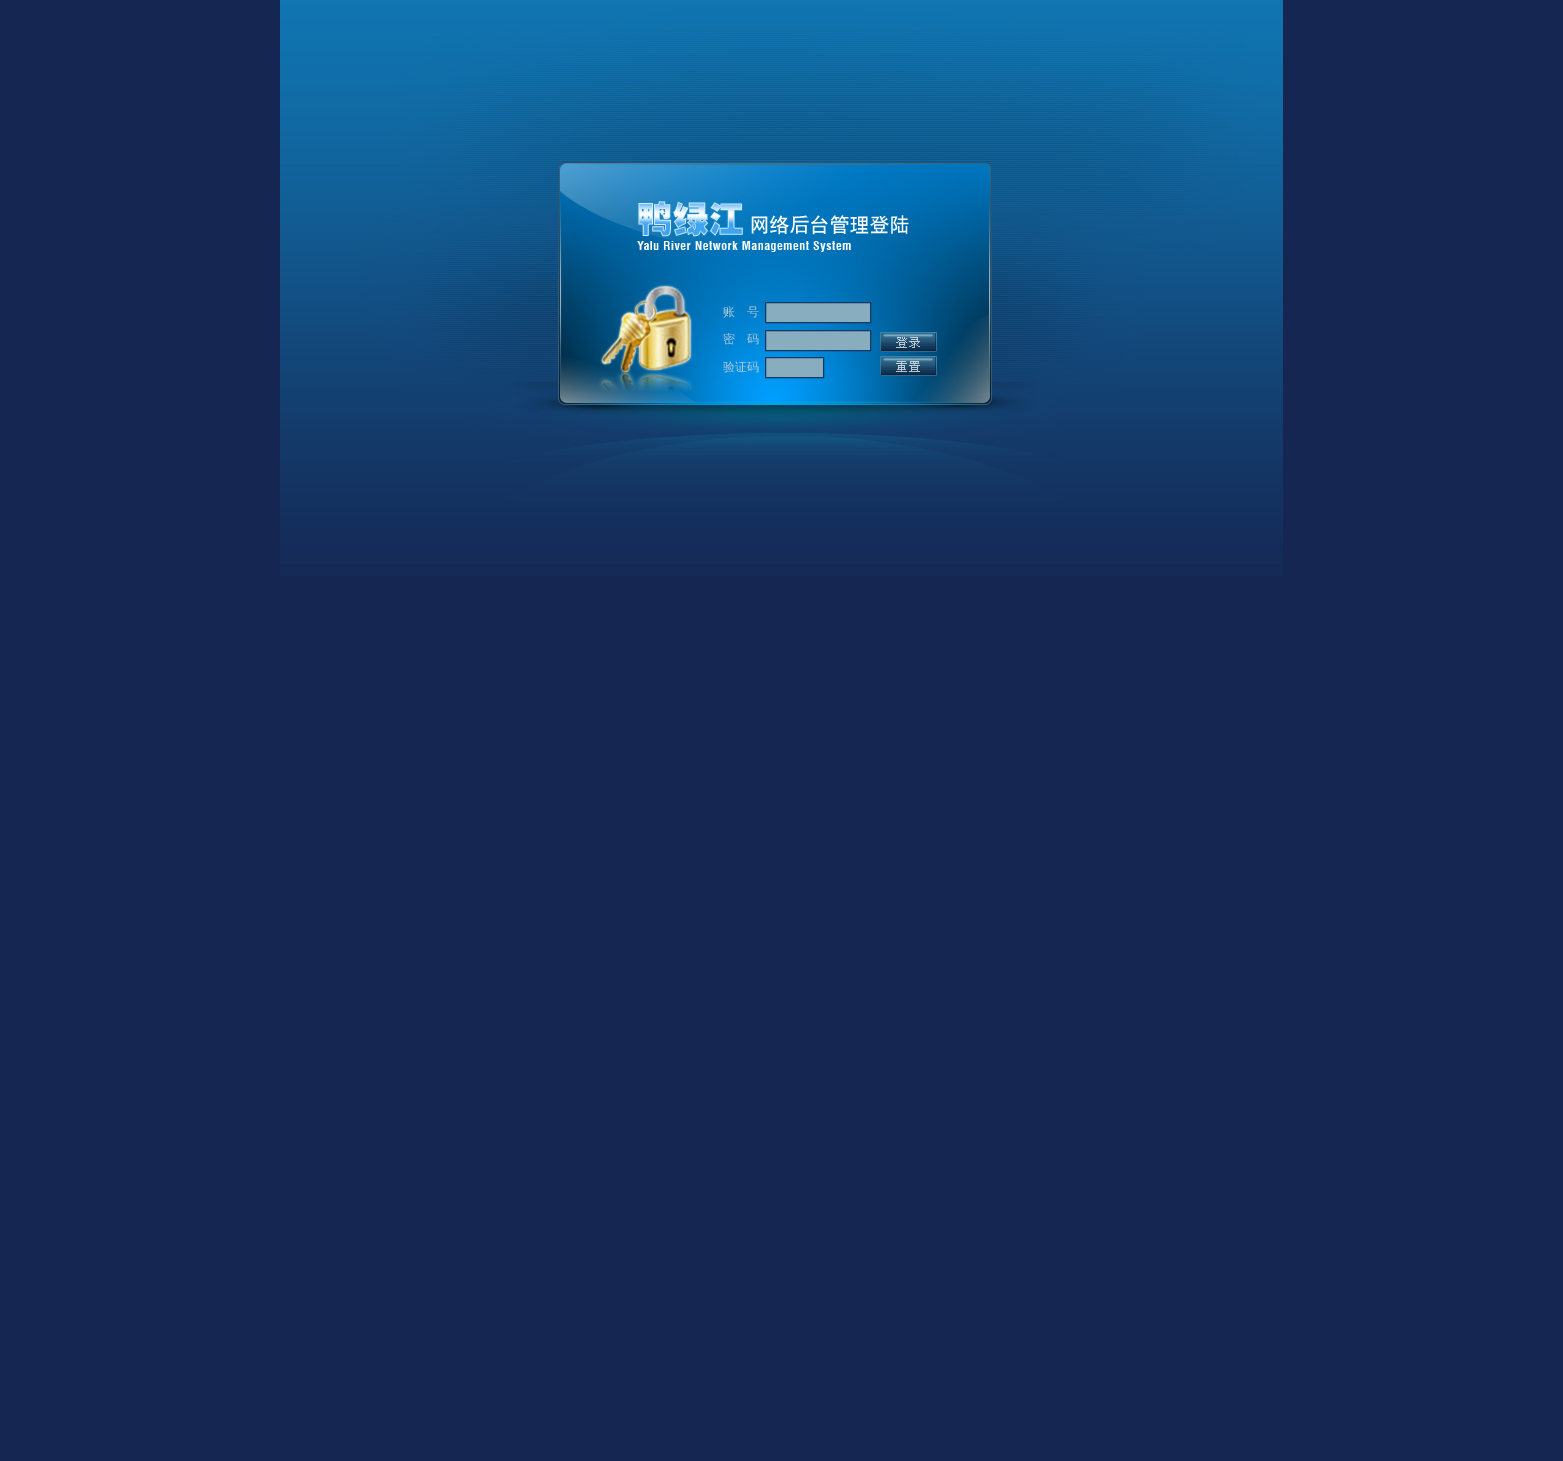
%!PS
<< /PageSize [1563 1461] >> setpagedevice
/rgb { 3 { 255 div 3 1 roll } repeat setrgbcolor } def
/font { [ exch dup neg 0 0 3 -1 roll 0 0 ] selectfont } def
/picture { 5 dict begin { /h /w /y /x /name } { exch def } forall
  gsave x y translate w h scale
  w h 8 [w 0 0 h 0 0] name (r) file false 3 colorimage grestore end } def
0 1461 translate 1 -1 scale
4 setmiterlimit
21 38 82 rgb
0 0 1563 1461 rectfill
(img/1.rgb) 280 0 1003 28 picture
(img/2.rgb) 280 28 1003 2 picture
(img/3.rgb) 280 30 1003 61 picture
(img/4.rgb) 280 91 1003 2 picture
(img/5.rgb) 280 93 1003 49 picture
17 102 159 rgb
280 142 1003 1 rectfill
(img/6.rgb) 280 143 1003 57 picture
(img/7.rgb) 280 200 1003 56 picture
(img/8.rgb) 280 256 1003 10 picture
(img/9.rgb) 280 266 1003 33 picture
(img/10.rgb) 280 299 1003 119 picture
135 173 191 rgb
765.5 302.5 moveto 870.5 302.5 lineto 870.5 322.5 lineto 765.5 322.5 lineto closepath gsave fill grestore
21 56 101 rgb
stroke
135 173 191 rgb
765.5 330.5 moveto 870.5 330.5 lineto 870.5 350.5 lineto 765.5 350.5 lineto closepath gsave fill grestore
21 56 101 rgb
stroke
(img/11.rgb) 880 332 57 20 picture
(img/12.rgb) 880 356 57 20 picture
135 173 191 rgb
765.5 357.5 moveto 823.5 357.5 lineto 823.5 377.5 lineto 765.5 377.5 lineto closepath gsave fill grestore
21 56 101 rgb
stroke
(img/13.rgb) 280 418 1003 158 picture
/WenQuanYiZenHei-Medium 12 font
173 201 217 rgb
[
  [(账　号) 723 316]
  [(密　码) 723 343]
  [(验证码) 723 371]
] { aload pop moveto show } forall
showpage
